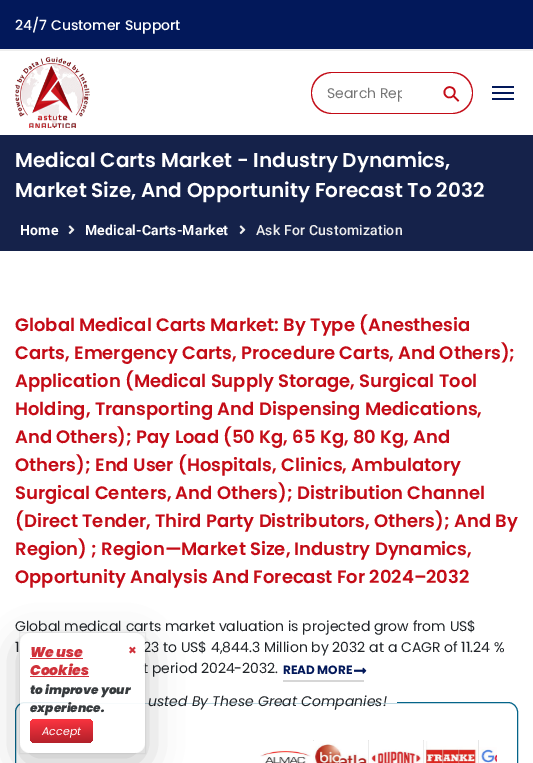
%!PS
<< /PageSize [533 763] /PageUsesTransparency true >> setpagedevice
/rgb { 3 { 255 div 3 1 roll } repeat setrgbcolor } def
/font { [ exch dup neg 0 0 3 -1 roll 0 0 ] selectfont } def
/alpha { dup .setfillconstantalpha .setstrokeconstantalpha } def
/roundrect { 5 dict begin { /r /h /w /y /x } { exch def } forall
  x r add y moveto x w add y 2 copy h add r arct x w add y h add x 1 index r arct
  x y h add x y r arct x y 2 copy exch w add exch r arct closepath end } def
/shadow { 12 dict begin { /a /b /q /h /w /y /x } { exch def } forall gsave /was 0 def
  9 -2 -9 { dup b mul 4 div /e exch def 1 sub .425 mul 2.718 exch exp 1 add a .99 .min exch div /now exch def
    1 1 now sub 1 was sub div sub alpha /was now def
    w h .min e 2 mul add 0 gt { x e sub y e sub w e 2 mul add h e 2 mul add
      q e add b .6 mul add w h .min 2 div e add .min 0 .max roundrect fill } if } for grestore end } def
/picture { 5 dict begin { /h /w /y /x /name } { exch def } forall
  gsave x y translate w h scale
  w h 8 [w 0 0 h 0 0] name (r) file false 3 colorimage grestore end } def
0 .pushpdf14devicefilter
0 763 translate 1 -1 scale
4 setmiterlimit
2 24 90 rgb
0 0 533 763 rectfill
[
  [0 49 533 1 241 241 241]
  [0 51 533 84 255 255 255]
  [0 50 533 1 238 238 238]
] { aload pop rgb rectfill } forall
(img/1.rgb) 15 57 75 71 picture
195 12 23 rgb
332 72 moveto 431 72 lineto 431 114 lineto 332 114 lineto 320 114 311 105 311 93 curveto 311 81 320 72 332 72 curveto closepath 332 73 moveto 431 73 lineto 431 113 lineto 332 113 lineto 321 113 312 104 312 93 curveto 312 82 321 73 332 73 curveto closepath eofill
431 72 moveto 452 72 lineto 464 72 473 81 473 93 curveto 473 105 464 114 452 114 curveto 431 114 lineto closepath 431 73 moveto 452 73 lineto 463 73 472 82 472 93 curveto 472 104 463 113 452 113 curveto 431 113 lineto closepath eofill
[
  [492 86 22 2 2 24 90]
  [492 92 22 2 2 24 90]
  [492 98 22 2 2 24 90]
  [0 135 533 116 21 34 74]
] { aload pop rgb rectfill } forall
(img/2.rgb) 68 225 7 10 picture
(img/2.rgb) 239 225 7 10 picture
255 255 255 rgb
0 251 533 512 rectfill
(img/3.rgb) 354 667 13 7 picture
214 214 214 rgb
283 680 81 2 rectfill
4 100 137 rgb
15.5 702.5 502 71 9.5 roundrect stroke
255 255 255 rgb
71 702 326 1 rectfill
230 230 230 rgb
313 740 1 1 rectfill
(img/4.rgb) 260 750 51 13 picture
368 740 1 23 rectfill
(img/5.rgb) 313 741 56 22 picture
423 740 1 23 rectfill
(img/6.rgb) 371 741 53 22 picture
478 740 1 23 rectfill
(img/7.rgb) 424 741 54 22 picture
(img/8.rgb) 479 747 18 16 picture
/Poppins-Medium 14 font
255 255 255 rgb
15 30 moveto (24/7 Customer Support) show
gsave
327 83 75 21 rectclip
/Poppins-Regular 14 font
117 117 117 rgb
327 98 moveto (Search Rep) show
grestore
/DejaVuSans-Regular 22 font
196 12 23 rgb
gsave 451 105 translate -45 rotate 0 0 moveto (⚲) show grestore
/Poppins-SemiBold 20 font
255 255 255 rgb
15 167 moveto (Medical Carts Market - Industry Dynamics,) show
15 197 moveto (Market Size, And Opportunity Forecast To 2032) show
/Roboto-Bold 14 font
20 235 moveto 0.2 0 (Home) ashow
85 235 moveto 0.2 0 (Medical-Carts-Market) ashow
/Roboto-Medium 14 font
238 238 238 rgb
256 235 moveto 0.2 0 (Ask For Customization) ashow
/Poppins-SemiBold 18 font
196 12 23 rgb
[
  [(Global Medical Carts Market: By Type \(Anesthesia) 15 331]
  [(Carts, Emergency Carts, Procedure Carts, And Others\);) 15 359]
  [(Application \(Medical Supply Storage, Surgical Tool) 15 387]
  [(Holding, Transporting And Dispensing Medications,) 15 415]
  [(And Others\); Pay Load \(50 Kg, 65 Kg, 80 Kg, And) 15 443]
  [(Others\); End User \(Hospitals, Clinics, Ambulatory) 15 471]
  [(Surgical Centers, And Others\); Distribution Channel) 15 499]
  [(\(Direct Tender, Third Party Distributors, Others\); And By) 15 527]
  [(Region\) ; Region—Market Size, Industry Dynamics,) 15 555]
  [(Opportunity Analysis And Forecast For 2024–2032) 15 583]
] { aload pop moveto show } forall
/Poppins-Regular 14 font
33 37 41 rgb
[
  [(Global medical carts market valuation is projected grow from US$) 15 631]
  [(1) 15 652]
  [(23 to US$ 4,844.3 Million by 2032 at a CAGR of 11.24 %) 143 652]
  [(t period 2024-2032.) 143 673]
] { aload pop moveto show } forall
/Poppins-Bold 12 font
2 24 90 rgb
283 674 moveto (READ MORE) show
/Poppins-Italic 14 font
33 37 41 rgb
148 706 moveto (usted By These Great Companies!) show
0.05 alpha
0 0 0 rgb
19.5 632.5 126 121 rectstroke
gsave
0 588 moveto 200 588 lineto 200 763 lineto 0 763 lineto closepath 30 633 moveto 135 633 lineto 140.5 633 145 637.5 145 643 curveto 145 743 lineto 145 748.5 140.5 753 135 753 curveto 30 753 lineto 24.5 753 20 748.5 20 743 curveto 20 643 lineto 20 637.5 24.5 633 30 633 curveto closepath eoclip newpath
1 alpha
20 643 125 120 10 18 0.23 shadow
grestore
0.9 alpha
255 255 255 rgb
20 633 125 120 10 roundrect fill
/Poppins-BlackItalic 14 font
1 alpha
208 50 59 rgb
30 657 moveto (We use) show
208 50 60 rgb
30 658 53 1 rectfill
/Poppins-Bold 14 font
208 50 59 rgb
128 655 moveto (×) show
/Poppins-BlackItalic 14 font
30 675 moveto (Cookies) show
0.9 alpha
203 27 38 rgb
30 676 59 1 rectfill
/Poppins-BlackItalic 12 font
1 alpha
55 59 62 rgb
30 694 moveto (to improve your) show
30 712 moveto (experience.) show
gsave 30 719 63 24 6 roundrect clip newpath
<< /ShadingType 2 /ColorSpace /DeviceRGB /Coords [61 718 62 744] /Extend [true true] /Function << /FunctionType 2 /Domain [0 1] /C0 [1 0.208 0.255] /C1 [0.69 0.125 0.161] /N 1 >> >> shfill grestore
/Poppins-Italic 11 font
255 255 255 rgb
42 735 moveto (Accept) show
.poppdf14devicefilter showpage
